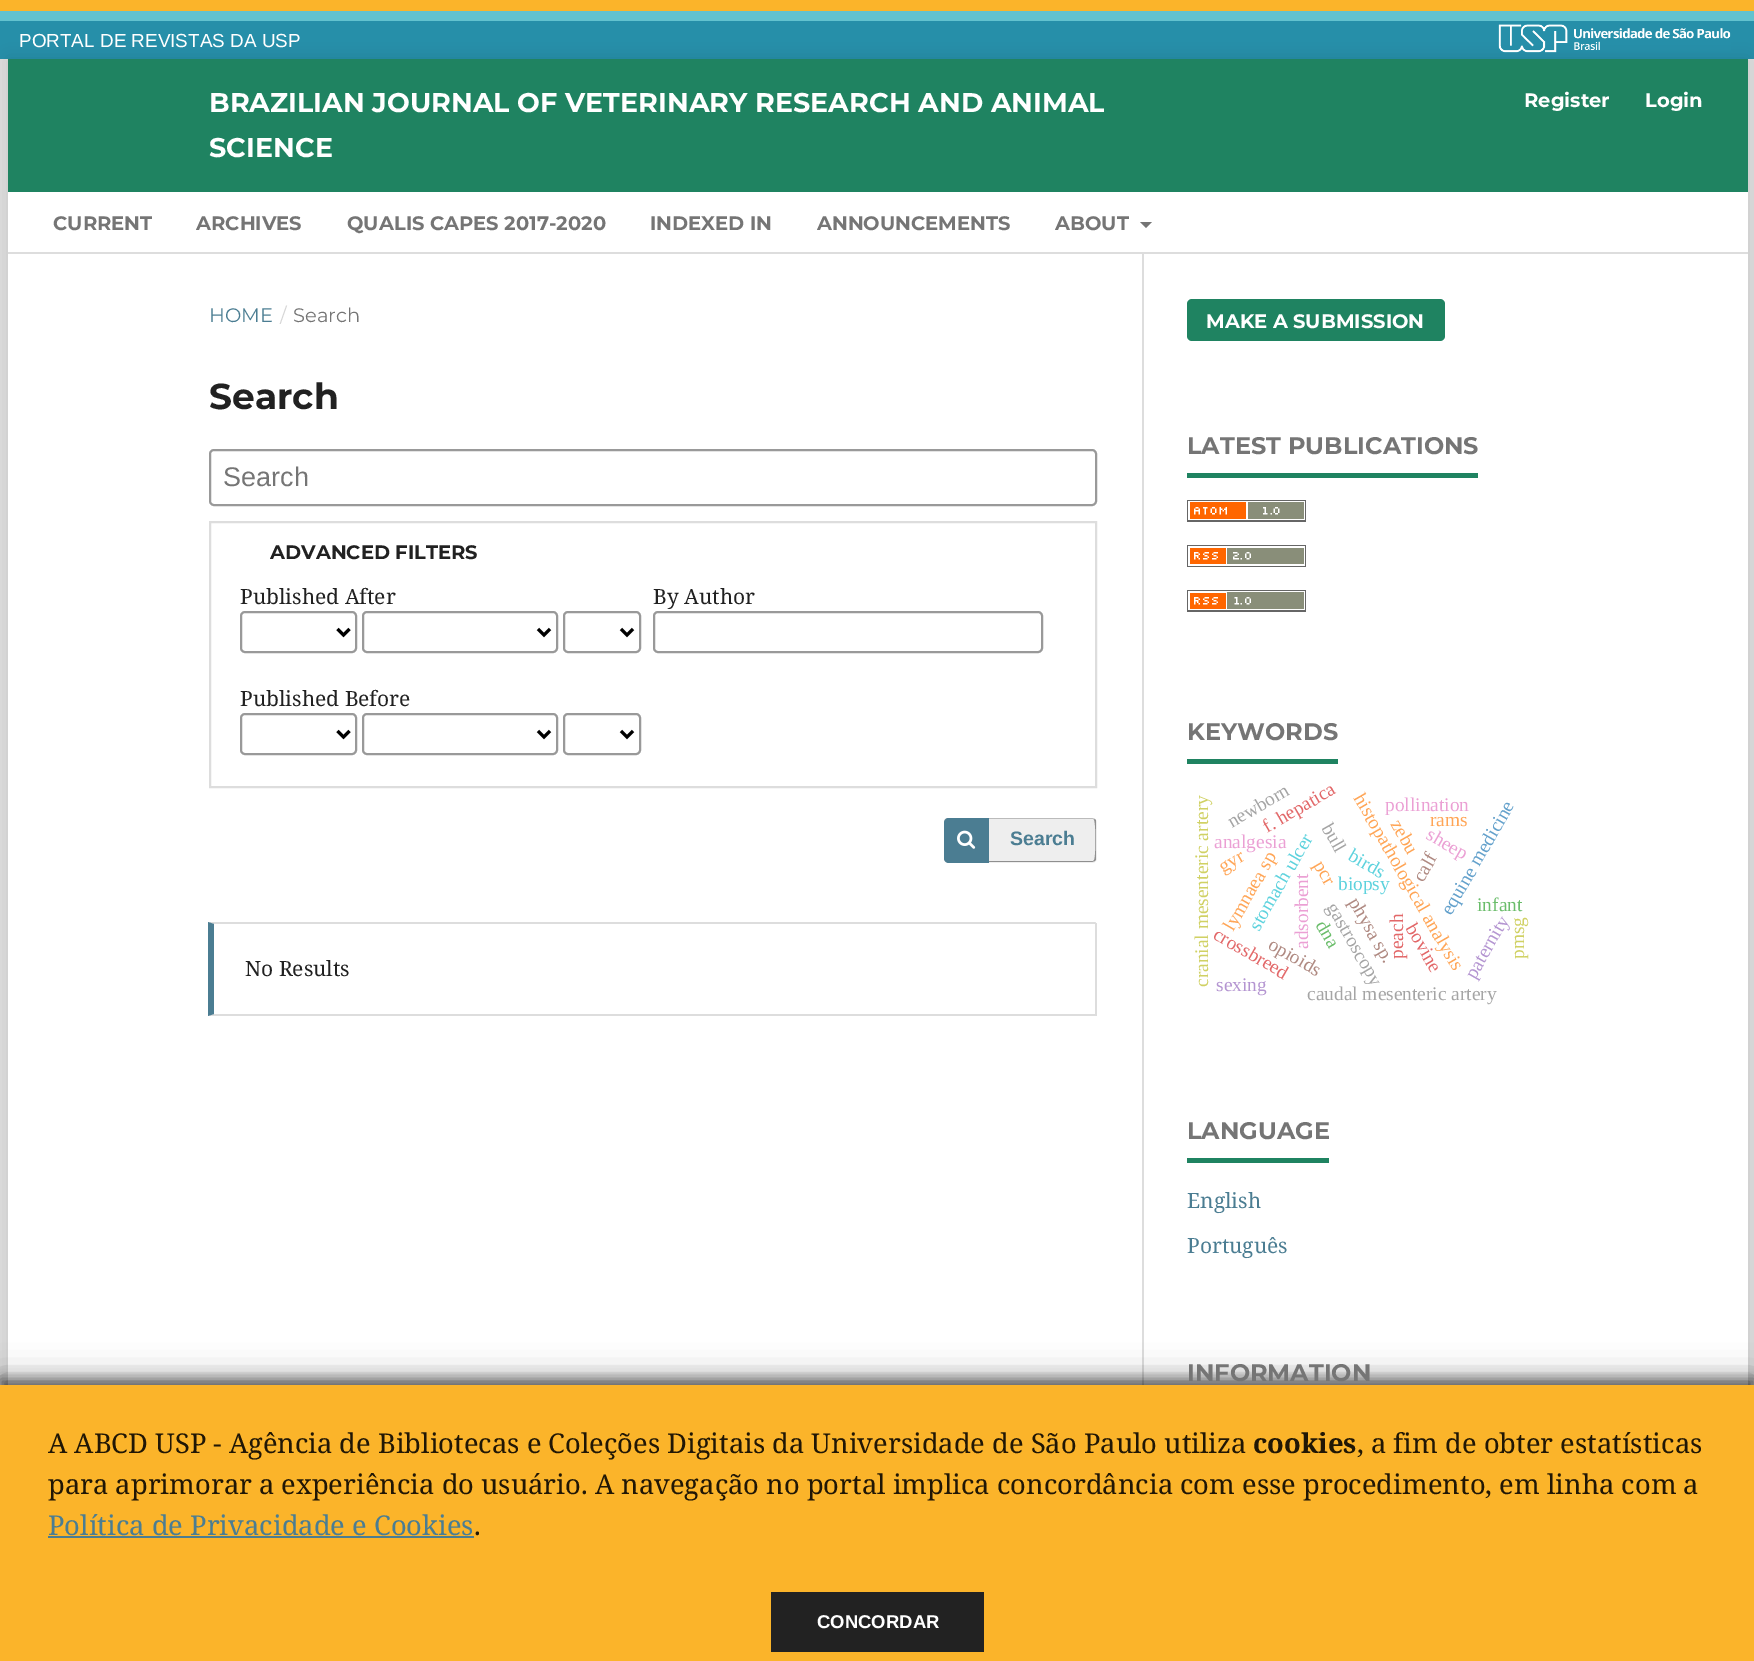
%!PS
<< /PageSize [1754 1661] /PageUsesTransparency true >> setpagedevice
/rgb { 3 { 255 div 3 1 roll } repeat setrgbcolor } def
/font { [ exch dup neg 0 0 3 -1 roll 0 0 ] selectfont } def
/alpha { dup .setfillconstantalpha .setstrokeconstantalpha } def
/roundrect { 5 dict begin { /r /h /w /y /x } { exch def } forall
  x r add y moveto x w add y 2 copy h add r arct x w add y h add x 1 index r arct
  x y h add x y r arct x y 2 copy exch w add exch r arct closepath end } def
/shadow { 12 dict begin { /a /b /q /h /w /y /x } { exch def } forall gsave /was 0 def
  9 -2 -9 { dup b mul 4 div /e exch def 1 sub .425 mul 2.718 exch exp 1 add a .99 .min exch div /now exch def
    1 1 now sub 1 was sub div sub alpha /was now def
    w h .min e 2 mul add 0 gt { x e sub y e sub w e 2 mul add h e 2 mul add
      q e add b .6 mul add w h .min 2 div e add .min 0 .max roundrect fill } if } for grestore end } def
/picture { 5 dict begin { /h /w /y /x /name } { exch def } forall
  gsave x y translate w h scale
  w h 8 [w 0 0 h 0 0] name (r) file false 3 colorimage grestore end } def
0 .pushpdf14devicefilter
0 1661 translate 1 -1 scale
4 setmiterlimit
221 221 221 rgb
0 0 1754 1661 rectfill
[
  [0 0 1754 11 251 180 42]
  [0 11 1754 10 98 194 207]
  [0 21 1754 38 38 143 169]
] { aload pop rgb rectfill } forall
0 0 0 rgb
8 59 1740 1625 0 7.5 0.1 shadow
(img/1.rgb) 1498 24 233 29 picture
[
  [8 254 1740 1131 255 255 255]
  [8 59 1740 133 31 131 97]
  [8 252 1740 2 221 221 221]
  [8 192 1740 60 255 255 255]
] { aload pop rgb rectfill } forall
117 117 117 rgb
1140 222 moveto 1152 222 lineto 1146 228 lineto closepath fill
153 153 153 rgb
2 setlinewidth
210 450 886 55 4 roundrect stroke
221 221 221 rgb
210 522 886 265 rectstroke
153 153 153 rgb
241 612 115 40 4 roundrect stroke
0 0 0 rgb
3 setlinewidth
337.5 629 moveto 343.5 635 lineto 349.5 629 lineto stroke
153 153 153 rgb
2 setlinewidth
363 612 194 40 4 roundrect stroke
0 0 0 rgb
3 setlinewidth
538 629 moveto 544 635 lineto 550 629 lineto stroke
153 153 153 rgb
2 setlinewidth
564 612 76 40 4 roundrect stroke
0 0 0 rgb
3 setlinewidth
621 629 moveto 627 635 lineto 633 629 lineto stroke
153 153 153 rgb
2 setlinewidth
241 714 115 40 4 roundrect stroke
0 0 0 rgb
3 setlinewidth
337.5 731 moveto 343.5 737 lineto 349.5 731 lineto stroke
153 153 153 rgb
2 setlinewidth
363 714 194 40 4 roundrect stroke
0 0 0 rgb
3 setlinewidth
538 731 moveto 544 737 lineto 550 731 lineto stroke
153 153 153 rgb
2 setlinewidth
564 714 76 40 4 roundrect stroke
0 0 0 rgb
3 setlinewidth
621 731 moveto 627 737 lineto 633 731 lineto stroke
153 153 153 rgb
2 setlinewidth
654 612 388 40 4 roundrect stroke
238 238 238 rgb
944 818 153 45 5 roundrect fill
187 187 187 rgb
948 818 moveto 1092 818 lineto 1095 819 lineto 1094 820 lineto 1093 819 lineto 972 819 lineto 965 819 944 816 944 822 curveto 944 820 946 818 948 818 curveto closepath fill
0.4 alpha
0 0 0 rgb
1095 819 moveto 1096 820 1096 821 1096 822 curveto 1096 858 lineto 1096 859 1096 860 1095 861 curveto 1094 860 lineto 1096 859 1096 821 1094 820 curveto closepath fill
1095 861 moveto 1094 860 lineto 1093 861 lineto 972 861 lineto 965 861 944 864 944 858 curveto 944 860 946 862 948 862 curveto 1092 862 lineto closepath fill
1 alpha
75 125 146 rgb
949 818 moveto 989 818 lineto 989 863 lineto 949 863 lineto 946 863 944 861 944 858 curveto 944 823 lineto 944 820 946 818 949 818 curveto closepath fill
(img/2.rgb) 957 830 19 19 picture
221 221 221 rgb
208 922 moveto 1096 922 lineto 1095 924 lineto 214 924 lineto closepath fill
1095 923 2 93 rectfill
1096 1016 moveto 208 1016 lineto 214 1014 lineto 1095 1014 lineto closepath fill
75 125 146 rgb
208 1016 moveto 208 922 lineto 214 924 lineto 214 1014 lineto closepath fill
221 221 221 rgb
1142 254 2 1131 rectfill
31 131 97 rgb
1187 299 258 42 5 roundrect fill
1187 473 291 5 rectfill
(img/3.rgb) 1187 500 119 22 picture
(img/4.rgb) 1187 545 119 22 picture
(img/5.rgb) 1187 590 119 22 picture
1187 759 151 5 rectfill
1187 1158 142 5 rectfill
0 0 0 rgb
0 1376 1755 277 0 15 0.3 shadow
0 1379 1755 277 0 6 0.5 shadow
[
  [0 1385 1754 276 251 180 42]
  [48 1536 426 2 75 125 146]
  [771 1592 213 60 34 34 34]
] { aload pop rgb rectfill } forall
/LiberationSans-Regular 18.9 font
255 255 255 rgb
19 47 moveto (PORTAL DE REVISTAS DA USP) show
/Montserrat-Bold 19.5 font
1524 107 moveto (Register) show
1645 107 moveto (Login) show
117 117 117 rgb
[
  [(CURRENT) 53 230]
  [(ARCHIVES) 196 230]
  [(QUALIS CAPES 2017-2020) 347 230]
  [(INDEXED IN) 650 230]
  [(ANNOUNCEMENTS) 817 230]
  [(ABOUT) 1055 230]
] { aload pop moveto show } forall
/Montserrat-Bold 27 font
255 255 255 rgb
209 112 moveto (BRAZILIAN JOURNAL OF VETERINARY RESEARCH AND ANIMAL) show
209 157 moveto (SCIENCE) show
/Montserrat-Regular 19.5 font
75 125 146 rgb
209 322 moveto (HOME) show
214 214 214 rgb
280 322 moveto (/) show
117 117 117 rgb
293 322 moveto (Search) show
/Montserrat-Bold 36 font
33 33 33 rgb
209 409 moveto (Search) show
/LiberationSans-Regular 27 font
117 117 117 rgb
223 486 moveto (Search) show
/Montserrat-Bold 19.5 font
33 33 33 rgb
270 559 moveto (ADVANCED FILTERS) show
/NotoSerif-Regular 21 font
[
  [(Published After) 240 604]
  [(Published Before) 240 706]
  [(By Author) 653 604]
] { aload pop moveto show } forall
/LiberationSans-Bold 19.5 font
75 125 146 rgb
1010 845 moveto (Search) show
/NotoSerif-Regular 21 font
33 33 33 rgb
245 976 moveto (No Results) show
/Montserrat-Bold 19.5 font
255 255 255 rgb
1206 328 moveto (MAKE A SUBMISSION) show
/Montserrat-Bold 24 font
117 117 117 rgb
1187 454 moveto (LATEST PUBLICATIONS) show
1187 740 moveto (KEYWORDS) show
/LiberationSerif-Regular 19.4 font
208 209 100 rgb
gsave 1208 987 translate -90 rotate 0 0 moveto (cranial mesenteric artery) show grestore
226 104 105 rgb
gsave 1267 833 translate -30 rotate 0 0 moveto (f. hepatica) show grestore
165 165 165 rgb
gsave 1232 828 translate -30 rotate 0 0 moveto (newborn) show grestore
gsave 1321 828 translate 60 rotate 0 0 moveto (bull) show grestore
235 160 212 rgb
gsave 1308 949 translate -90 rotate 0 0 moveto (adsorbent) show grestore
93 210 221 rgb
gsave 1259 932 translate -60 rotate 0 0 moveto (stomach ulcer) show grestore
255 165 86 rgb
gsave 1233 932 translate -60 rotate 0 0 moveto (lymnaea sp) show grestore
gsave 1223 873 translate -30 rotate 0 0 moveto (gyr) show grestore
235 160 212 rgb
1214 848 moveto (analgesia) show
255 165 86 rgb
gsave 1313 865 translate 60 rotate 0 0 moveto (pcr) show grestore
93 210 221 rgb
1338 890 moveto (biopsy) show
165 165 165 rgb
gsave 1326 907 translate 60 rotate 0 0 moveto (gastroscopy) show grestore
255 165 86 rgb
gsave 1353 798 translate 60 rotate 0 0 moveto (histopathological analysis) show grestore
98 160 203 rgb
gsave 1451 916 translate -60 rotate 0 0 moveto (equine medicine) show grestore
255 165 86 rgb
1430 826 moveto (rams) show
235 160 212 rgb
gsave 1425 838 translate 30 rotate 0 0 moveto (sheep) show grestore
107 189 107 rgb
1477 911 moveto (infant) show
175 137 129 rgb
gsave 1423 883 translate -60 rotate 0 0 moveto (calf) show grestore
235 160 212 rgb
1385 811 moveto (pollination) show
175 137 129 rgb
gsave 1348 902 translate 60 rotate 0 0 moveto (physa sp.) show grestore
255 165 86 rgb
gsave 1390 824 translate 60 rotate 0 0 moveto (zebu) show grestore
93 210 221 rgb
gsave 1347 859 translate 30 rotate 0 0 moveto (birds) show grestore
226 104 105 rgb
gsave 1403 959 translate -90 rotate 0 0 moveto (peach) show grestore
gsave 1405 928 translate 60 rotate 0 0 moveto (bovine) show grestore
180 149 209 rgb
gsave 1475 980 translate -60 rotate 0 0 moveto (paternity) show grestore
208 209 100 rgb
gsave 1524 959 translate -90 rotate 0 0 moveto (pmsg) show grestore
175 137 129 rgb
gsave 1267 948 translate 30 rotate 0 0 moveto (opioids) show grestore
226 104 105 rgb
gsave 1212 938 translate 30 rotate 0 0 moveto (crossbreed) show grestore
107 189 107 rgb
gsave 1315 925 translate 60 rotate 0 0 moveto (dna) show grestore
180 149 209 rgb
1216 991 moveto (sexing) show
165 165 165 rgb
1307 1000 moveto (caudal mesenteric artery) show
/Montserrat-Bold 24 font
117 117 117 rgb
1187 1139 moveto (LANGUAGE) show
/NotoSerif-Regular 21 font
75 125 146 rgb
1187 1208 moveto (English) show
1187 1253 moveto (Português) show
/Montserrat-Bold 24 font
117 117 117 rgb
1187 1381 moveto (INFORMATION) show
/NotoSerif-Regular 27.3 font
33 23 5 rgb
48 1453 moveto (A ABCD USP - Agência de Bibliotecas e Coleções Digitais da Universidade de São Paulo utiliza) show
/NotoSerif-Bold 27.3 font
1253 1453 moveto (cookies) show
/NotoSerif-Regular 27.3 font
1357 1453 moveto (, a fim de obter estatísticas) show
48 1494 moveto (para aprimorar a experiência do usuário. A navegação no portal implica concordância com esse procedimento, em linha com a) show
75 125 146 rgb
48 1535 moveto (Política de Privacidade e Cookies) show
33 23 5 rgb
474 1535 moveto (.) show
/LiberationSans-Bold 18.5 font
255 255 255 rgb
817 1628 moveto (CONCORDAR) show
.poppdf14devicefilter showpage
